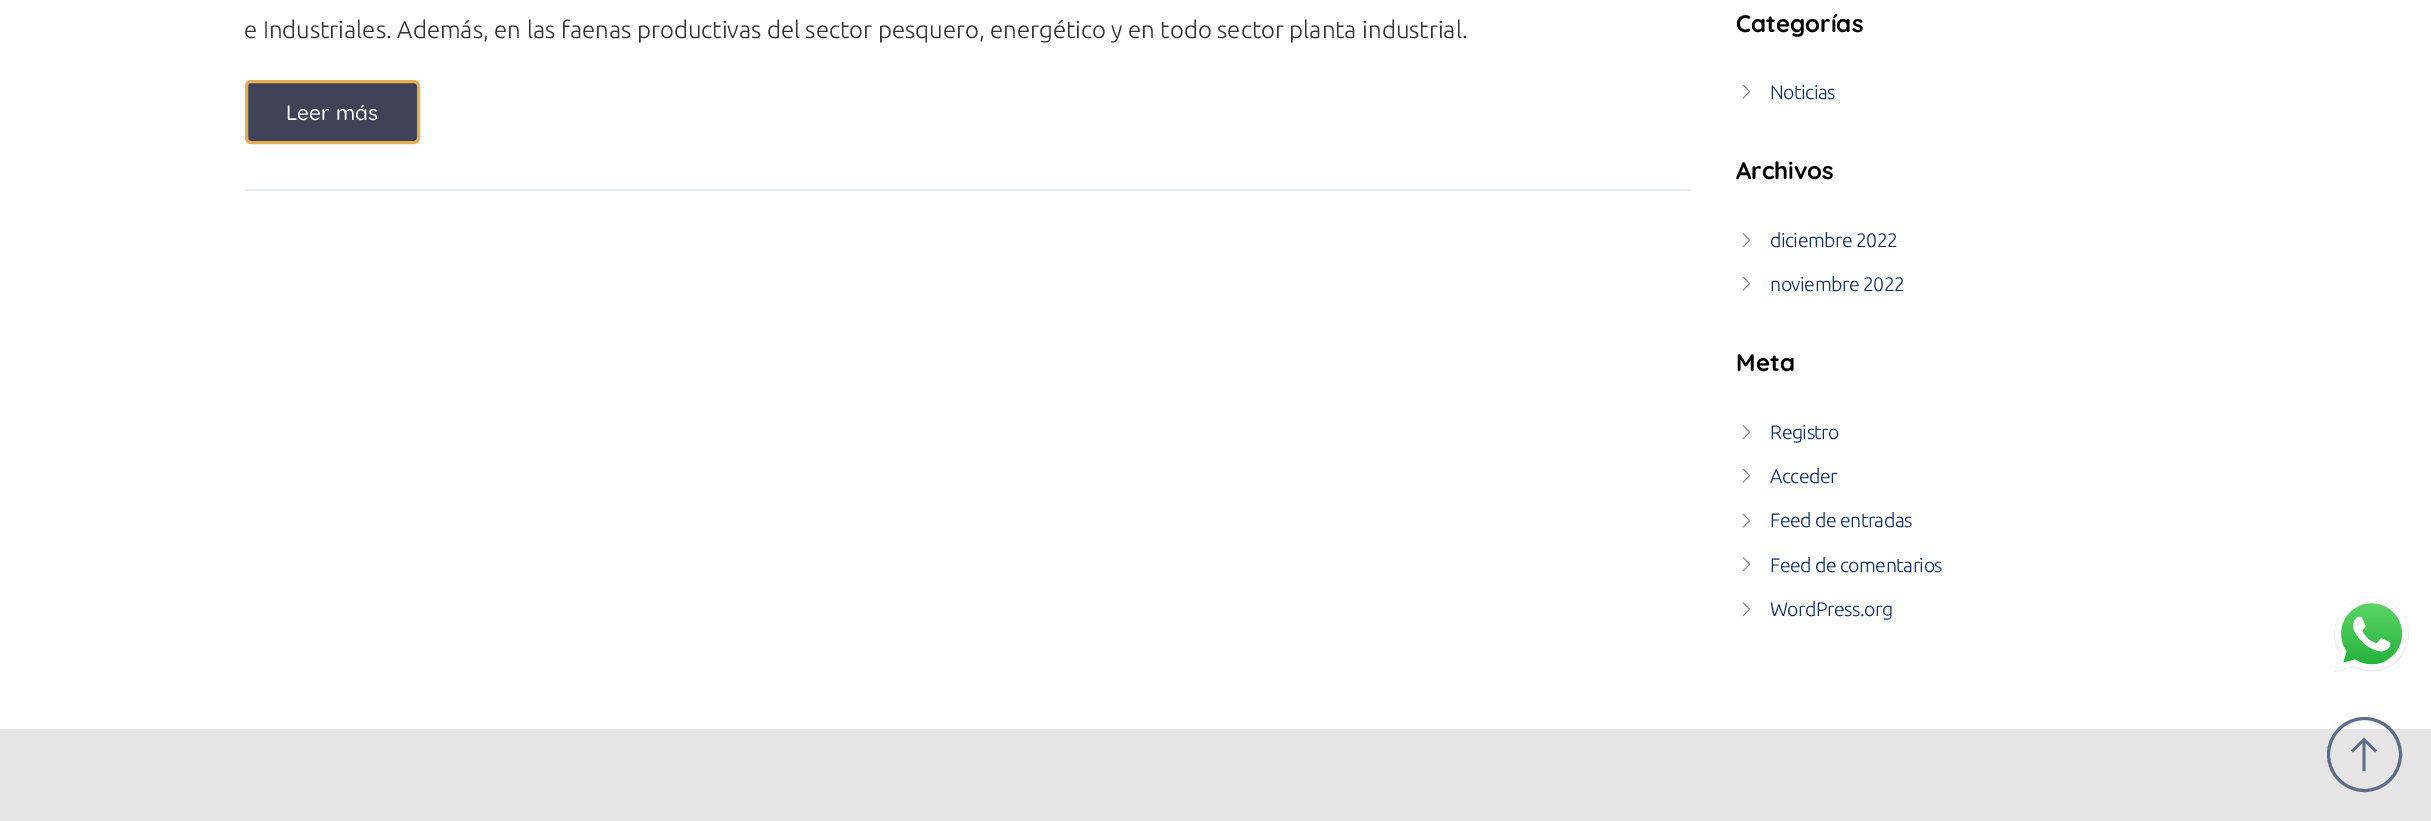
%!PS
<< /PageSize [2431 821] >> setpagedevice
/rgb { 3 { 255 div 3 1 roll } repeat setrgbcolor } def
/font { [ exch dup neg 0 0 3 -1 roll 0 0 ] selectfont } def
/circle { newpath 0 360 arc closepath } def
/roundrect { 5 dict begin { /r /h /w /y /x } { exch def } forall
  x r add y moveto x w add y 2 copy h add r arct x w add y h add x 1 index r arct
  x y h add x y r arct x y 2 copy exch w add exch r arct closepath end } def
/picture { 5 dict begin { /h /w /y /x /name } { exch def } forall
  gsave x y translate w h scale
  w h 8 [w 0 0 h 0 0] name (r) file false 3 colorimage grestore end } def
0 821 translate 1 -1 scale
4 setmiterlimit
255 255 255 rgb
0 0 2431 821 rectfill
232 236 236 rgb
245 189 1446 2 rectfill
64 67 87 rgb
246.5 81.5 172 61 4.5 roundrect gsave fill grestore
228 174 83 rgb
3 setlinewidth
stroke
(img/1.rgb) 1742 84 9 15 picture
(img/2.rgb) 1742 233 9 15 picture
(img/1.rgb) 1742 276 9 15 picture
(img/2.rgb) 1742 425 9 15 picture
(img/1.rgb) 1742 468 9 15 picture
(img/1.rgb) 1742 513 9 15 picture
(img/2.rgb) 1742 557 9 15 picture
(img/2.rgb) 1742 602 9 15 picture
(img/3.rgb) 2334 597 75 75 picture
230 229 229 rgb
0 729 2431 92 rectfill
93 109 136 rgb
2364.5 754.5 36 circle stroke
2364 737.5 moveto 2351 750.5 lineto 2353 752.5 lineto 2362.5 743 lineto 2362.5 771 lineto 2365.5 771 lineto 2365.5 743 lineto 2375 752.5 lineto 2377 750.5 lineto closepath fill
/Ubuntu-Light 24 font
51 51 51 rgb
244 38 moveto (e Industriales. Además, en las faenas productivas del sector pesquero, energético y en todo sector planta industrial.) show
/Quicksand-Medium 21 font
255 255 255 rgb
286 120 moveto (Leer más) show
/Quicksand-Bold 24 font
0 0 0 rgb
1736 32 moveto (Categorías) show
/Ubuntu-Light 19.5 font
13 44 102 rgb
1770 99 moveto -0.5 0 (Noticias) ashow
/Quicksand-Bold 24 font
0 0 0 rgb
1736 179 moveto (Archivos) show
/Ubuntu-Light 19.5 font
13 44 102 rgb
1770 247 moveto -0.5 0 (diciembre 2022) ashow
1770 291 moveto -0.5 0 (noviembre 2022) ashow
/Quicksand-Bold 24 font
0 0 0 rgb
1736 371 moveto (Meta) show
/Ubuntu-Light 19.5 font
13 44 102 rgb
1770 439 moveto -0.5 0 (Registro) ashow
1770 483 moveto -0.5 0 (Acceder) ashow
1770 527 moveto -0.5 0 (Feed de entradas) ashow
1770 572 moveto -0.5 0 (Feed de comentarios) ashow
1770 616 moveto -0.5 0 (WordPress.org) ashow
showpage
